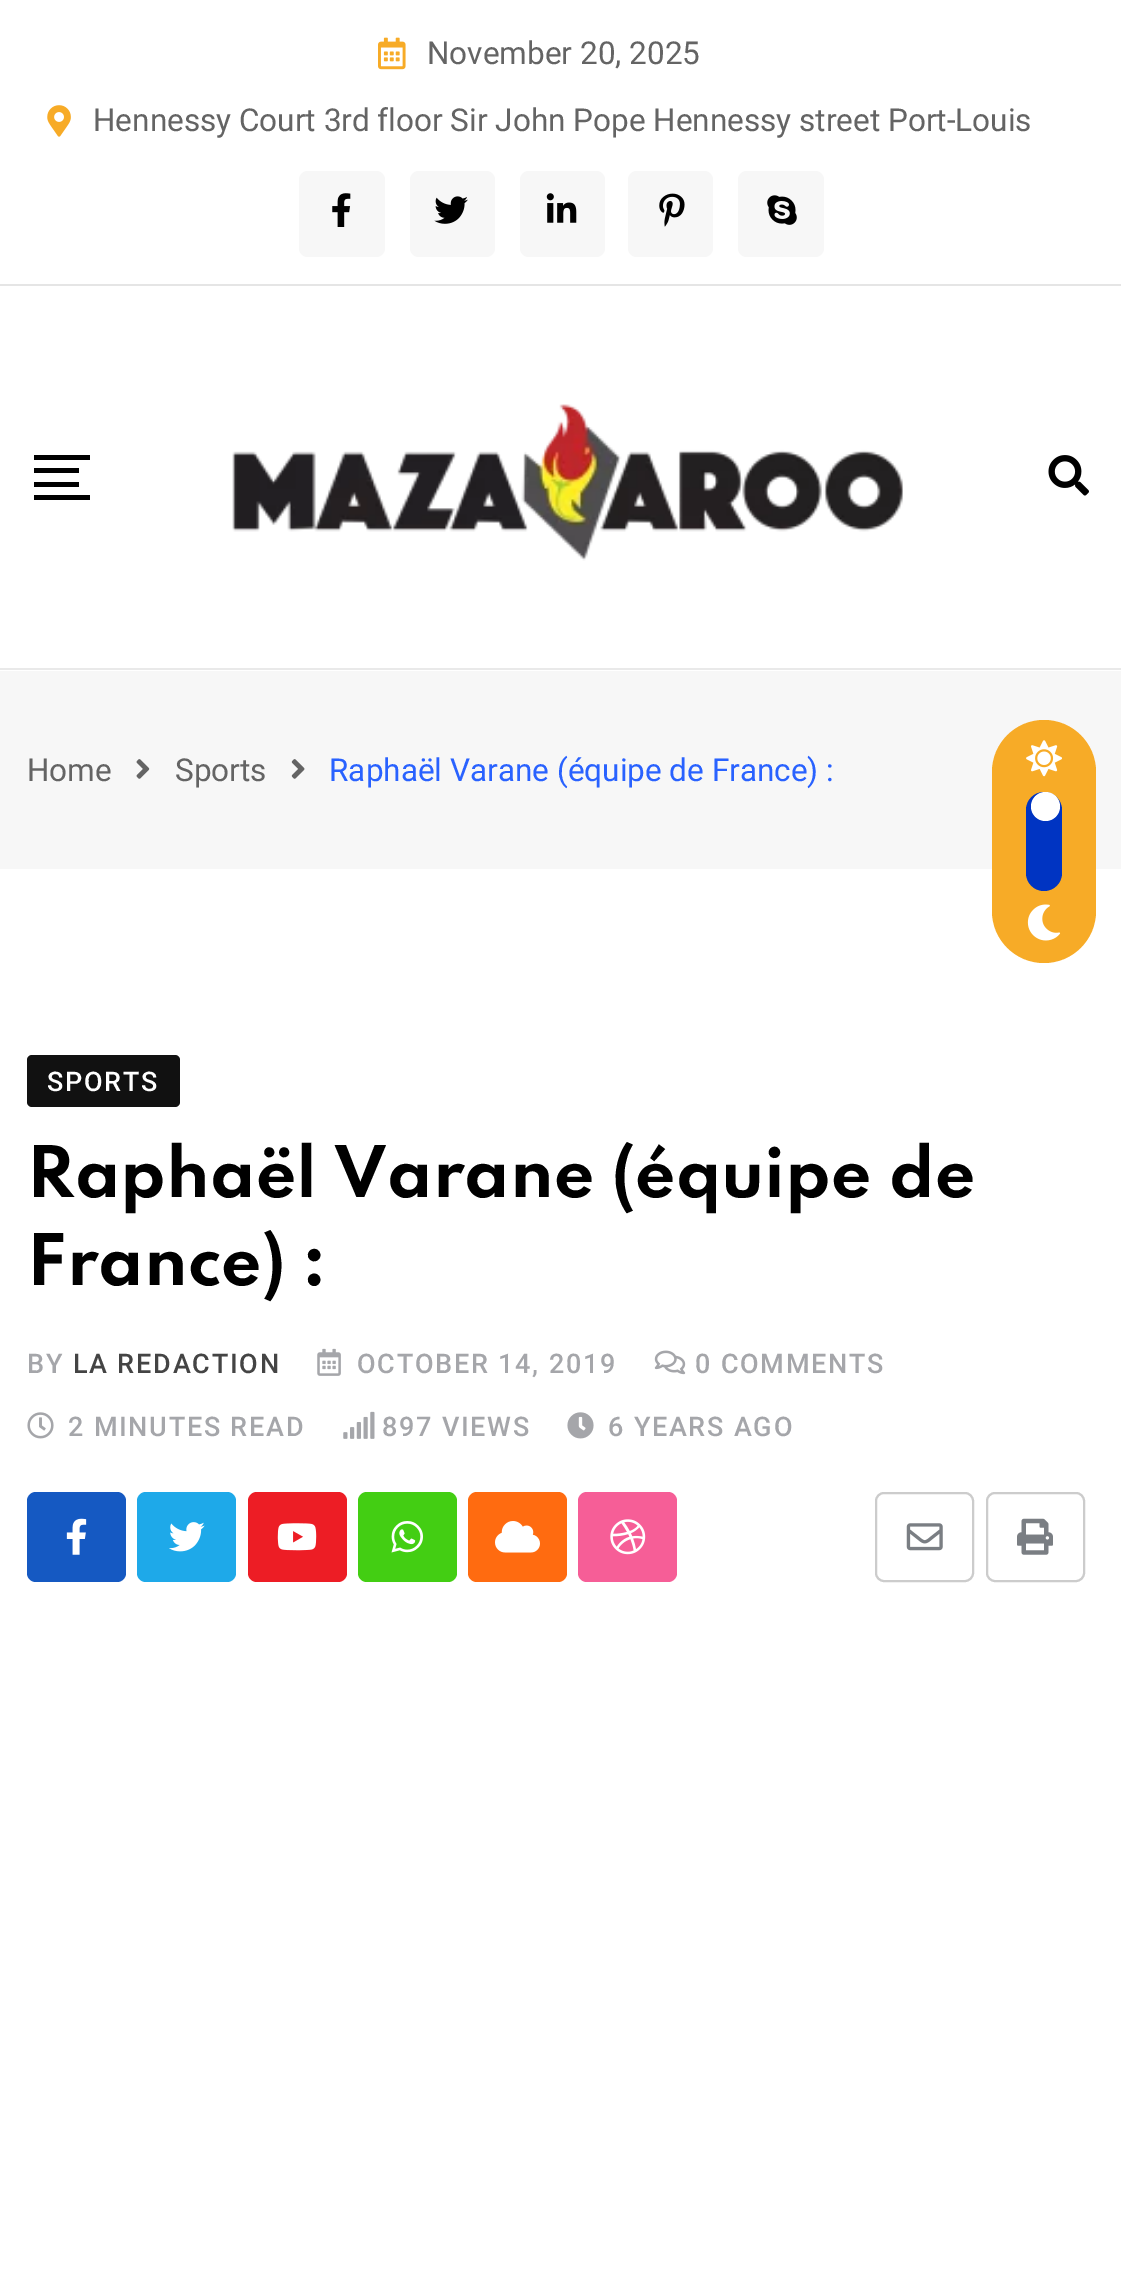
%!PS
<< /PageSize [1121 2285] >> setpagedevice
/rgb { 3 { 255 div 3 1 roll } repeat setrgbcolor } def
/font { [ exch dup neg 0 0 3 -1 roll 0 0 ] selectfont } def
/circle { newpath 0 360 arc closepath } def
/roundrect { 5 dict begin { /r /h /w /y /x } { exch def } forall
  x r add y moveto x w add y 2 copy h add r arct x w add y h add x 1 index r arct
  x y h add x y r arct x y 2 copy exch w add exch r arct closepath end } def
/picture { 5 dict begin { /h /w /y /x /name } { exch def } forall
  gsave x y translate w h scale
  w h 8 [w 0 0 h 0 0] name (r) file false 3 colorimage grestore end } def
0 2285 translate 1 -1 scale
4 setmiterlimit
255 255 255 rgb
0 0 1121 2285 rectfill
229 229 229 rgb
0 284 1121 2 rectfill
(img/1.rgb) 378 37 28 33 picture
(img/2.rgb) 47 105 24 32 picture
247 247 247 rgb
299 171 86 86 9 roundrect fill
(img/3.rgb) 332 193 19 34 picture
410 171 85 86 9 roundrect fill
(img/4.rgb) 434 196 34 28 picture
520 171 85 86 9 roundrect fill
(img/5.rgb) 546 193 31 30 picture
628 171 85 86 9 roundrect fill
(img/6.rgb) 659 193 26 34 picture
738 171 86 86 9 roundrect fill
(img/7.rgb) 767 195 30 30 picture
[
  [0 668 1121 2 233 233 233]
  [34 455 56 5 0 0 0]
  [34 468 45 5 0 0 0]
  [34 482 45 5 0 0 0]
  [34 495 56 5 0 0 0]
] { aload pop rgb rectfill } forall
(img/8.rgb) 232 404 671 157 picture
(img/9.rgb) 1048 455 41 41 picture
247 247 247 rgb
0 671 1121 198 rectfill
(img/10.rgb) 136 759 14 20 picture
(img/11.rgb) 291 759 14 20 picture
17 17 17 rgb
27 1055 153 52 5 roundrect fill
(img/12.rgb) 317 1348 24 28 picture
(img/13.rgb) 654 1350 32 25 picture
(img/14.rgb) 27 1412 27 27 picture
(img/15.rgb) 343 1411 32 28 picture
(img/16.rgb) 567 1412 27 27 picture
21 89 194 rgb
27 1492 99 90 9 roundrect fill
(img/17.rgb) 66 1518 21 37 picture
30 169 233 rgb
137 1492 99 90 9 roundrect fill
(img/18.rgb) 169 1522 36 30 picture
237 29 37 rgb
248 1492 99 90 9 roundrect fill
(img/19.rgb) 277 1523 40 28 picture
67 206 19 rgb
358 1492 99 90 9 roundrect fill
(img/20.rgb) 391 1521 32 32 picture
255 107 16 rgb
468 1492 99 90 9 roundrect fill
(img/21.rgb) 495 1521 45 32 picture
246 94 151 rgb
578 1492 99 90 9 roundrect fill
(img/22.rgb) 610 1519 36 36 picture
204 204 204 rgb
2 setlinewidth
876 1493 97 88 8 roundrect stroke
(img/23.rgb) 906 1523 37 28 picture
987 1493 97 88 8 roundrect stroke
(img/24.rgb) 1017 1518 36 37 picture
247 171 39 rgb
992 720 104 243 52 roundrect fill
(img/25.rgb) 1026 740 36 37 picture
0 52 194 rgb
1026 792 36 99 18 roundrect fill
255 255 255 rgb
1045.5 806.5 14.5 circle fill
(img/26.rgb) 1027 904 34 37 picture
/Roboto-Regular 31.5 font
100 100 100 rgb
[
  [(November 20, 2025) 427 64]
  [(Hennessy Court 3rd floor Sir John Pope Hennessy street Port-Louis) 93 131]
  [(Home) 27 781]
  [(Sports) 175 781]
] { aload pop moveto show } forall
41 98 255 rgb
329 781 moveto (Raphaël Varane \(équipe de France\) :) show
/Roboto-Medium 27 font
255 255 255 rgb
47 1091 moveto 1.75 0 (SPORTS) ashow
/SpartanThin-Bold 63 font
0 0 0 rgb
27 1197 moveto (Raphaël Varane \(équipe de) show
27 1285 moveto (France\) :) show
/Roboto-Medium 27 font
165 166 170 rgb
27 1373 moveto 1.75 0 (BY) ashow
68 68 68 rgb
73 1373 moveto 1.75 0 (LA REDACTION) ashow
165 166 170 rgb
357 1373 moveto 1.75 0 (OCTOBER 14, 2019) ashow
695 1373 moveto 1.75 0 (0 COMMENTS) ashow
68 1436 moveto 1.75 0 (2 MINUTES READ) ashow
382 1436 moveto 1.75 0 (897 VIEWS) ashow
608 1436 moveto 1.75 0 (6 YEARS AGO) ashow
showpage
